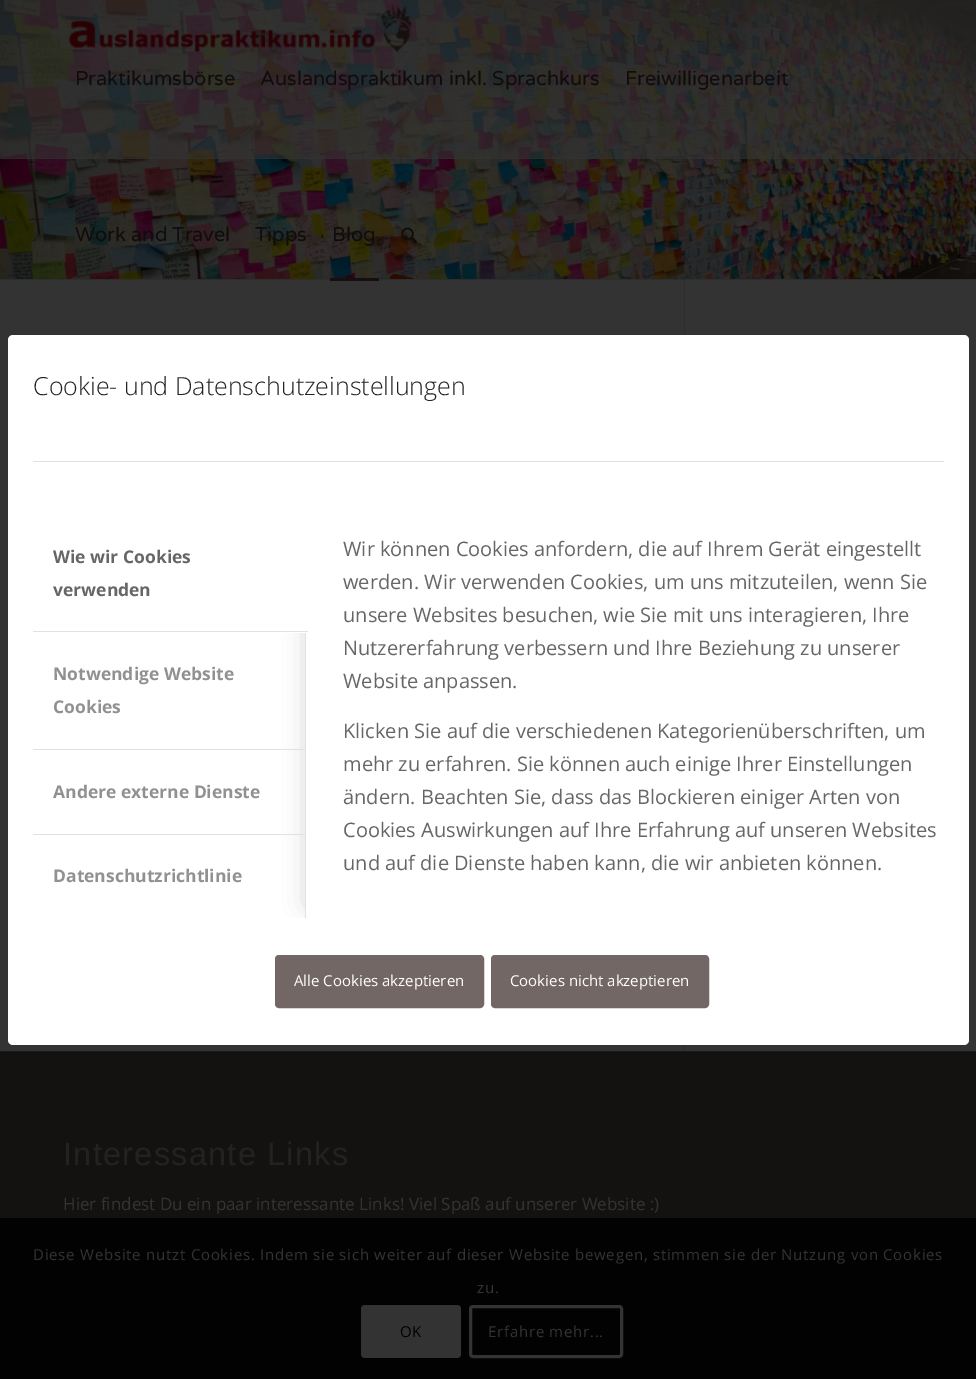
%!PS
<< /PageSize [976 1379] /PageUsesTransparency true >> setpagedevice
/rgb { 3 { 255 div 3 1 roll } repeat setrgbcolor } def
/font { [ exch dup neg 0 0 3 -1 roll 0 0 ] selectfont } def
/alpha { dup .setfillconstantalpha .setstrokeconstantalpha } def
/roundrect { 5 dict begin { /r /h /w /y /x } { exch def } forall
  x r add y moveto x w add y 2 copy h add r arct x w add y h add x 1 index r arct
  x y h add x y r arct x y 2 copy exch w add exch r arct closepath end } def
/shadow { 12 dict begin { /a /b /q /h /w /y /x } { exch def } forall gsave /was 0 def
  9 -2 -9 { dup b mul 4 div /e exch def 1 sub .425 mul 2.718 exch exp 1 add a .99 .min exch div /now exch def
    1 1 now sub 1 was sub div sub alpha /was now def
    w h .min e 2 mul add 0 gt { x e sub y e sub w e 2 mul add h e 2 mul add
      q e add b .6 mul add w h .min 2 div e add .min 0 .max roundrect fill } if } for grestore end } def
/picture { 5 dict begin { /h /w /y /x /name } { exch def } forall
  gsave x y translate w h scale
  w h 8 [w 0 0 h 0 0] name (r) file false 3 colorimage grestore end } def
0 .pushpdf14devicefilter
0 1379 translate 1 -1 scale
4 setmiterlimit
2 2 2 rgb
0 0 976 1379 rectfill
51 51 51 rgb
0 280 976 771 rectfill
(img/3.rgb) 0 0 976 279 picture
0.6 alpha
0 0 976 159 rectfill
0.25 alpha
0 158 976 1 rectfill
1 alpha
(img/1.rgb) 68 3 344 50 picture
45 45 45 rgb
0 279 976 1 rectfill
23 14 17 rgb
330 278 49 3 rectfill
(img/2.rgb) 401 227 16 17 picture
[
  [684 280 1 771 45 45 45]
  [0 1052 976 166 20 17 17]
  [0 1051 976 1 26 24 24]
] { aload pop rgb rectfill } forall
255 255 255 rgb
8 335 961 710 5 roundrect fill
225 225 225 rgb
33 461 911 1 rectfill
gsave
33 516 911 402 rectclip
0 0 0 rgb
309 529 612 376 0 12.5 0.2 shadow
grestore
305 631 1 119 rectfill
255 255 255 rgb
306 516 638 402 2.5 roundrect fill
35.5 516 moveto 308 516 lineto 308 633 lineto 33 633 lineto 33 518.5 lineto 33 517 34 516 35.5 516 curveto closepath fill
[
  [33 631 275 1 225 225 225]
  [33 749 273 1 225 225 225]
  [305 749 1 86 225 225 225]
  [33 834 273 1 225 225 225]
  [305 834 1 84 225 225 225]
] { aload pop rgb rectfill } forall
115 103 102 rgb
276.5 956.5 206 50 2.5 roundrect gsave fill grestore
3 setlinewidth
stroke
492.5 956.5 215 50 2.5 roundrect gsave fill grestore
stroke
51 51 51 rgb
361 1305 100 53 4 roundrect fill
470.5 1306.5 151 50 2.5 roundrect stroke
/VarelaRound-Regular 20 font
16 11 13 rgb
[
  [(Praktikumsbörse) 75 85]
  [(Auslandspraktikum inkl. Sprachkurs) 260 85]
  [(Freiwilligenarbeit) 625 85]
  [(Work and Travel) 75 241]
  [(Tipps) 255 241]
  [(Blog) 332 241]
] { aload pop moveto show } forall
/LiberationSans-Regular 32.5 font
35 34 34 rgb
63 1165 moveto 1.25 0 (Interessante Links) ashow
/OpenSans-Regular 17 font
51 51 51 rgb
63 1210 moveto (Hier findest Du ein paar interessante Links! Viel Spaß auf unserer Website :\)) show
/OpenSans-Light 25 font
35 34 34 rgb
33 395 moveto (Cookie- und Datenschutzeinstellungen) show
/OpenSans-Bold 17.5 font
102 102 102 rgb
53 563 moveto (Wie wir Cookies) show
53 596 moveto (verwenden) show
145 145 145 rgb
[
  [(Notwendige Website) 53 680]
  [(Cookies) 53 713]
  [(Andere externe Dienste) 53 798]
  [(Datenschutzrichtlinie) 53 882]
] { aload pop moveto show } forall
/OpenSans-Regular 20 font
102 102 102 rgb
[
  [(Wir können Cookies anfordern, die auf Ihrem Gerät eingestellt) 343 556]
  [(werden. Wir verwenden Cookies, um uns mitzuteilen, wenn Sie) 343 589]
  [(unsere Websites besuchen, wie Sie mit uns interagieren, Ihre) 343 622]
  [(Nutzererfahrung verbessern und Ihre Beziehung zu unserer) 343 655]
  [(Website anpassen.) 343 688]
  [(Klicken Sie auf die verschiedenen Kategorienüberschriften, um) 343 738]
  [(mehr zu erfahren. Sie können auch einige Ihrer Einstellungen) 343 771]
  [(ändern. Beachten Sie, dass das Blockieren einiger Arten von) 343 804]
  [(Cookies Auswirkungen auf Ihre Erfahrung auf unseren Websites) 343 837]
  [(und auf die Dienste haben kann, die wir anbieten können.) 343 870]
] { aload pop moveto show } forall
/OpenSans-Regular 15 font
255 255 255 rgb
294 986 moveto (Alle Cookies akzeptieren) show
510 986 moveto (Cookies nicht akzeptieren) show
51 51 51 rgb
33 1260 moveto 0.75 0 (Diese Website nutzt Cookies. Indem sie sich weiter auf dieser Website bewegen, stimmen sie der Nutzung von Cookies) ashow
477 1293 moveto 0.75 0 (zu.) ashow
0 0 0 rgb
400 1337 moveto 0.75 0 (OK) ashow
51 51 51 rgb
488 1337 moveto 0.75 0 (Erfahre mehr...) ashow
.poppdf14devicefilter showpage
